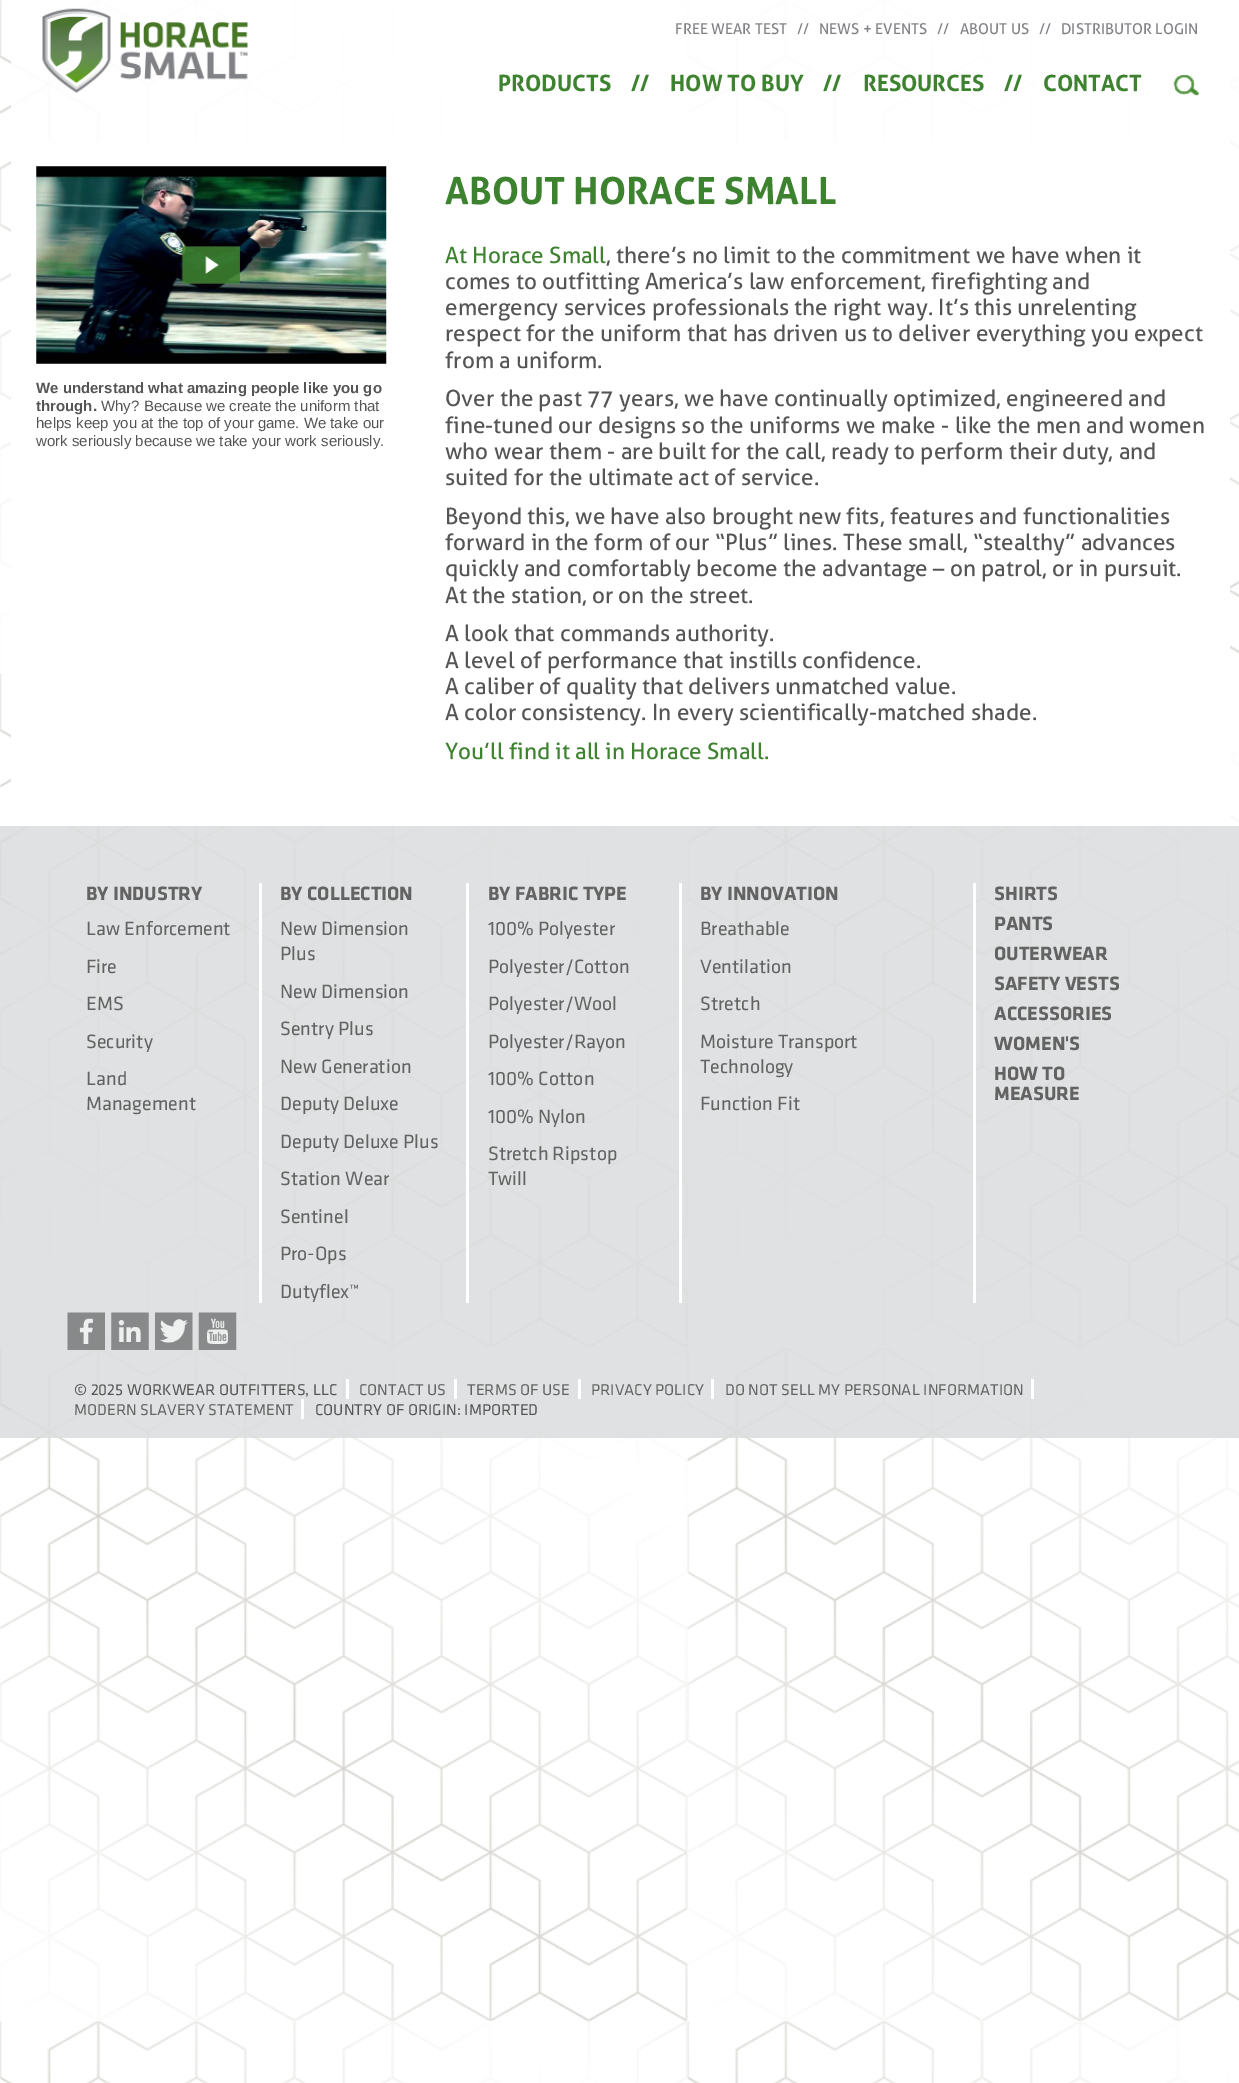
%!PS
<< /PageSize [1239 2083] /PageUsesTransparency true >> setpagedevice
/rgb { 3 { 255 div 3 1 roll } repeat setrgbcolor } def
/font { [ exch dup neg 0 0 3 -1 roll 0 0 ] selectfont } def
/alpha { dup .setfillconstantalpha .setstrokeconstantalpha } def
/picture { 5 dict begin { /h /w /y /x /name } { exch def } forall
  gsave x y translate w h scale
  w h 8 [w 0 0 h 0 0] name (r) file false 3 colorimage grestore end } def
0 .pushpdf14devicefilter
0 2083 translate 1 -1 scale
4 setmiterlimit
255 255 255 rgb
0 0 1239 2083 rectfill
(img/1.rgb) 0 0 1239 2083 picture
0.9 alpha
11 0 1219 141 rectfill
1 alpha
(img/2.rgb) 42 8 206 85 picture
(img/3.rgb) 1173 74 26 22 picture
11 141 1219 685 rectfill
(img/4.rgb) 36 166 351 198 picture
0.5 alpha
[
  [11 826 1219 612 255 255 255]
] { aload pop rgb rectfill } forall
0.75 alpha
[
  [0 826 1239 612 213 215 216]
] { aload pop rgb rectfill } forall
1 alpha
[
  [259 883 3 420 255 255 255]
  [466 883 3 420 255 255 255]
  [679 883 3 420 255 255 255]
  [973 883 3 420 255 255 255]
] { aload pop rgb rectfill } forall
(img/5.rgb) 67 1312 38 38 picture
(img/6.rgb) 111 1312 38 38 picture
(img/7.rgb) 155 1312 38 38 picture
(img/8.rgb) 198 1312 39 38 picture
[
  [346 1379 3 20 255 255 255]
  [454 1379 3 20 255 255 255]
  [578 1379 3 20 255 255 255]
  [711 1379 3 20 255 255 255]
  [1031 1379 3 20 255 255 255]
  [301 1399 3 20 255 255 255]
] { aload pop rgb rectfill } forall
/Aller-Regular 15 font
129 130 134 rgb
[
  [(FREE WEAR TEST) 675 34]
  [(//) 797 34]
  [(NEWS + EVENTS) 819 34]
  [(//) 937 34]
  [(ABOUT US) 960 34]
  [(//) 1039 34]
  [(DISTRIBUTOR LOGIN) 1061 34]
] { aload pop moveto show } forall
/Aller-Bold 22.5 font
61 130 46 rgb
[
  [(PRODUCTS) 498 91]
  [(//) 631 91]
  [(HOW TO BUY) 670 91]
  [(//) 823 91]
  [(RESOURCES) 863 91]
  [(//) 1004 91]
  [(CONTACT) 1043 91]
] { aload pop moveto show } forall
/LiberationSans-Bold 15 font
85 85 85 rgb
36 393 moveto (We understand what amazing people like you go) show
36 411 moveto (through.) show
/LiberationSans-Regular 15 font
[
  [(Why? Because we create the uniform that) 101 411]
  [(helps keep you at the top of your game. We take our) 36 428]
  [(work seriously because we take your work seriously.) 36 446]
] { aload pop moveto show } forall
/Aller-Bold 37.5 font
61 130 46 rgb
445 204 moveto (ABOUT HORACE SMALL) show
/Aller-Regular 22.5 font
445 263 moveto (At Horace Small) show
85 85 85 rgb
[
  [(, there’s no limit to the commitment we have when it) 606 263]
  [(comes to outfitting America’s law enforcement, firefighting and) 445 289]
  [(emergency services professionals the right way. It’s this unrelenting) 445 315]
  [(respect for the uniform that has driven us to deliver everything you expect) 445 341]
  [(from a uniform.) 445 368]
  [(Over the past 77 years, we have continually optimized, engineered and) 445 406]
  [(fine-tuned our designs so the uniforms we make - like the men and women) 445 433]
  [(who wear them - are built for the call, ready to perform their duty, and) 445 459]
  [(suited for the ultimate act of service.) 445 485]
  [(Beyond this, we have also brought new fits, features and functionalities) 445 524]
  [(forward in the form of our “Plus” lines. These small, “stealthy” advances) 445 550]
  [(quickly and comfortably become the advantage – on patrol, or in pursuit.) 445 576]
  [(At the station, or on the street.) 445 603]
  [(A look that commands authority.) 445 641]
  [(A level of performance that instills confidence.) 445 668]
  [(A caliber of quality that delivers unmatched value.) 445 694]
  [(A color consistency. In every scientifically-matched shade.) 445 720]
] { aload pop moveto show } forall
61 130 46 rgb
445 759 moveto (You’ll find it all in Horace Small.) show
/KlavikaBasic-Bold 20 font
99 99 99 rgb
86 900 moveto (BY INDUSTRY) show
/KlavikaBasic-Regular 20 font
[
  [(Law Enforcement) 86 935]
  [(Fire) 86 973]
  [(EMS) 86 1010]
  [(Security) 86 1048]
  [(Land) 86 1085]
  [(Management) 86 1110]
] { aload pop moveto show } forall
/KlavikaBasic-Bold 20 font
280 900 moveto (BY COLLECTION) show
/KlavikaBasic-Regular 20 font
[
  [(New Dimension) 280 935]
  [(Plus) 280 960]
  [(New Dimension) 280 998]
  [(Sentry Plus) 280 1035]
  [(New Generation) 280 1073]
  [(Deputy Deluxe) 280 1110]
  [(Deputy Deluxe Plus) 280 1148]
  [(Station Wear) 280 1185]
  [(Sentinel) 280 1223]
  [(Pro-Ops) 280 1260]
  [(Dutyflex™) 280 1298]
] { aload pop moveto show } forall
/KlavikaBasic-Bold 20 font
488 900 moveto (BY FABRIC TYPE) show
/KlavikaBasic-Regular 20 font
[
  [(100% Polyester) 488 935]
  [(Polyester/Cotton) 488 973]
  [(Polyester/Wool) 488 1010]
  [(Polyester/Rayon) 488 1048]
  [(100% Cotton) 488 1085]
  [(100% Nylon) 488 1123]
  [(Stretch Ripstop) 488 1160]
  [(Twill) 488 1185]
] { aload pop moveto show } forall
/KlavikaBasic-Bold 20 font
700 900 moveto (BY INNOVATION) show
/KlavikaBasic-Regular 20 font
[
  [(Breathable) 700 935]
  [(Ventilation) 700 973]
  [(Stretch) 700 1010]
  [(Moisture Transport) 700 1048]
  [(Technology) 700 1073]
  [(Function Fit) 700 1110]
] { aload pop moveto show } forall
/KlavikaBasic-Bold 20 font
[
  [(SHIRTS) 994 900]
  [(PANTS) 994 930]
  [(OUTERWEAR) 994 960]
  [(SAFETY VESTS) 994 990]
  [(ACCESSORIES) 994 1020]
  [(WOMEN'S) 994 1050]
  [(HOW TO) 994 1080]
  [(MEASURE) 994 1100]
] { aload pop moveto show } forall
/KlavikaBasic-Regular 16.25 font
85 85 85 rgb
74 1395 moveto (© 2025 WORKWEAR OUTFITTERS, LLC) show
99 99 99 rgb
[
  [(CONTACT US) 359 1395]
  [(TERMS OF USE) 467 1395]
  [(PRIVACY POLICY) 591 1395]
  [(DO NOT SELL MY PERSONAL INFORMATION) 725 1395]
  [(MODERN SLAVERY STATEMENT) 74 1415]
] { aload pop moveto show } forall
85 85 85 rgb
315 1415 moveto (COUNTRY OF ORIGIN: IMPORTED) show
.poppdf14devicefilter showpage
